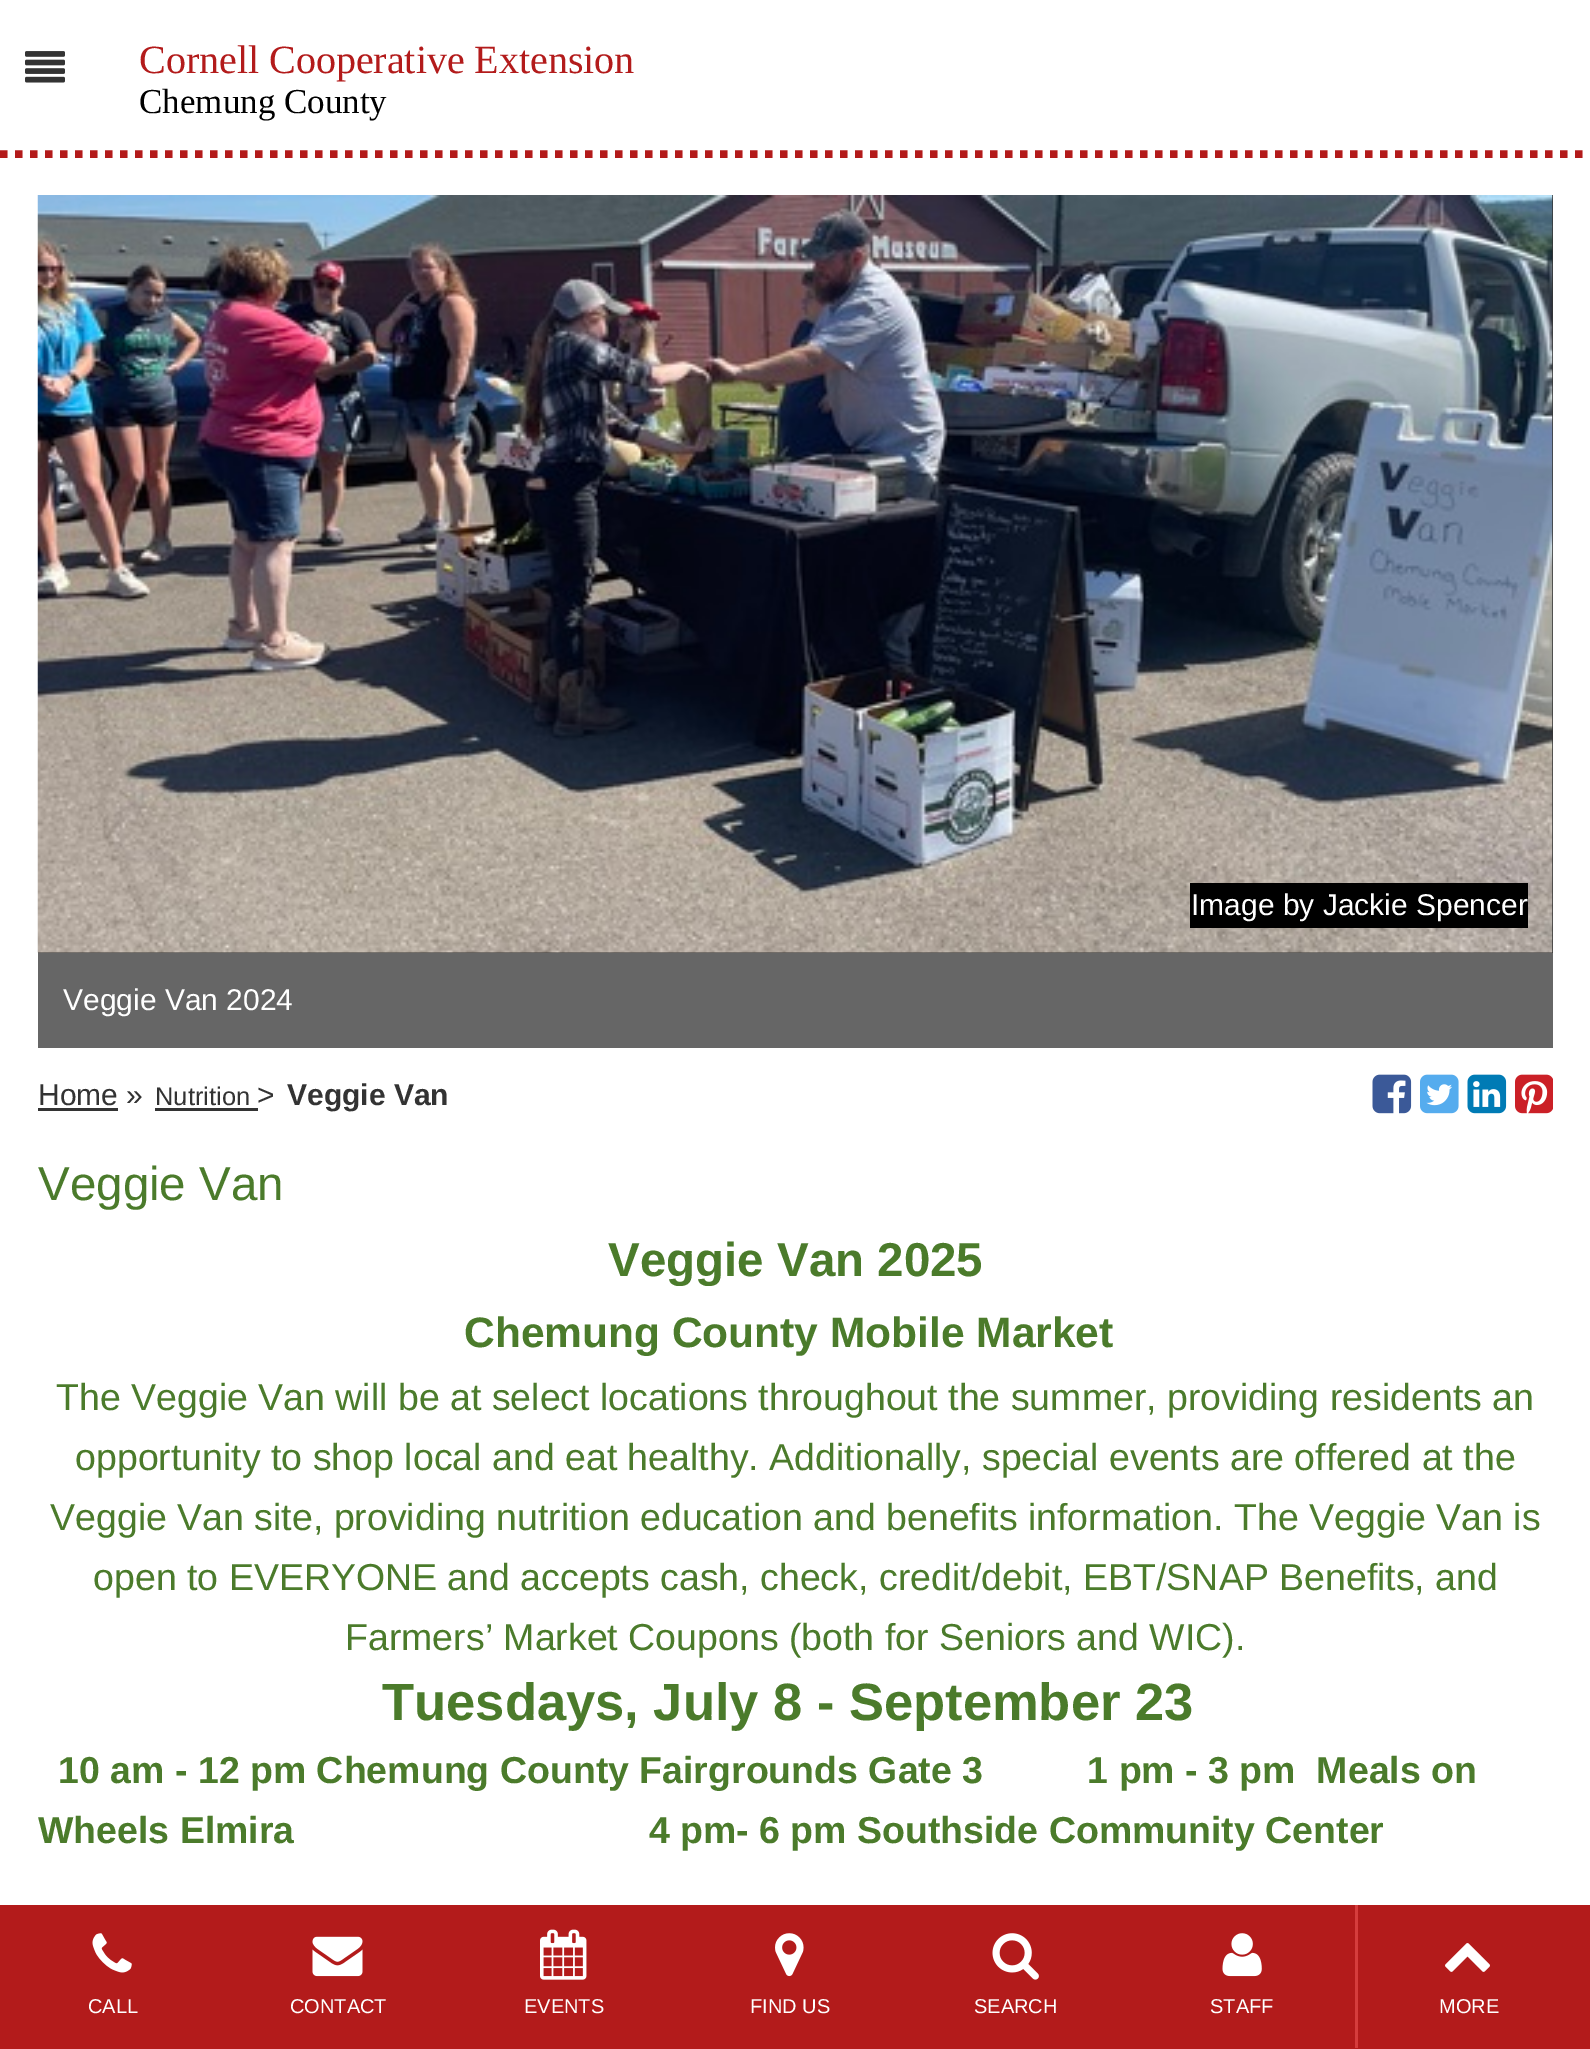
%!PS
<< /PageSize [1590 2049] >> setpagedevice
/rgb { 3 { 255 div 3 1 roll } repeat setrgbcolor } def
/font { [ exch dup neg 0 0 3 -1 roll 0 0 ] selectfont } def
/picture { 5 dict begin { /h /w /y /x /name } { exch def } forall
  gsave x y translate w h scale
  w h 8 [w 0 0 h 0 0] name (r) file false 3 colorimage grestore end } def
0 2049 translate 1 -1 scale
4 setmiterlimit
255 255 255 rgb
0 0 1590 2049 rectfill
179 27 27 rgb
7.5 setlinewidth
[7.5 7.5] 0 setdash
0 154 moveto 1590 154 lineto stroke
(img/1.rgb) 25 51 40 32 picture
51 51 51 rgb
38 195 1515 758 rectfill
(img/2.rgb) 37 195 1516 758 picture
[
  [1190 883 338 45 0 0 0]
  [38 953 1515 95 102 102 102]
  [38 1108 80 3 51 51 51]
  [155 1108 103 3 51 51 51]
] { aload pop rgb rectfill } forall
(img/3.rgb) 1372 1074 40 40 picture
(img/4.rgb) 1420 1074 39 40 picture
(img/5.rgb) 1467 1074 40 40 picture
(img/6.rgb) 1515 1074 38 40 picture
179 27 27 rgb
0 1905 1590 144 rectfill
(img/7.rgb) 92 1933 40 40 picture
(img/8.rgb) 312 1936 51 41 picture
(img/9.rgb) 540 1929 47 51 picture
(img/10.rgb) 775 1933 29 44 picture
(img/11.rgb) 992 1933 47 47 picture
(img/12.rgb) 1222 1933 40 44 picture
213 61 61 rgb
1355 1905 3 143 rectfill
(img/13.rgb) 1445 1943 45 29 picture
/LiberationSerif-Regular 40 font
179 27 27 rgb
139 73 moveto (Cornell Cooperative Extension) show
/LiberationSerif-Regular 35 font
0 0 0 rgb
139 113 moveto (Chemung County) show
/LiberationSans-Regular 30 font
255 255 255 rgb
1191 915 moveto (Image by Jackie Spencer) show
63 1010 moveto (Veggie Van 2024) show
51 51 51 rgb
38 1105 moveto (Home ») show
/LiberationSans-Regular 25.5 font
155 1105 moveto (Nutrition) show
/LiberationSans-Regular 30 font
257 1105 moveto (>) show
/LiberationSans-Bold 30 font
287 1105 moveto (Veggie Van) show
/LiberationSans-Regular 47.5 font
75 123 43 rgb
38 1200 moveto (Veggie Van) show
/LiberationSans-Bold 47.5 font
608 1276 moveto (Veggie Van 2025) show
/LiberationSans-Bold 42.5 font
464 1347 moveto (Chemung County Mobile Market) show
/LiberationSans-Regular 37.5 font
[
  [(The Veggie Van will be at select locations throughout the summer, providing residents an) 56 1410]
  [(opportunity to shop local and eat healthy. Additionally, special events are offered at the) 75 1470]
  [(Veggie Van site, providing nutrition education and benefits information. The Veggie Van is) 50 1530]
  [(open to EVERYONE and accepts cash, check, credit/debit, EBT/SNAP Benefits, and) 93 1590]
  [(Farmers’ Market Coupons \(both for Seniors and WIC\).) 345 1650]
] { aload pop moveto show } forall
/LiberationSans-Bold 52.5 font
382 1720 moveto (Tuesdays, July 8 - September 23) show
/LiberationSans-Bold 37.5 font
58 1783 moveto (10 am - 12 pm Chemung County Fairgrounds Gate 3          1 pm - 3 pm  Meals on) show
38 1843 moveto (Wheels Elmira                                  4 pm- 6 pm Southside Community Center) show
/LiberationSans-Regular 20 font
255 255 255 rgb
[
  [(CALL) 88 2013]
  [(CONTACT) 290 2013]
  [(EVENTS) 524 2013]
  [(FIND US) 750 2013]
  [(SEARCH) 974 2013]
  [(STAFF) 1210 2013]
  [(MORE) 1439 2013]
] { aload pop moveto show } forall
showpage
